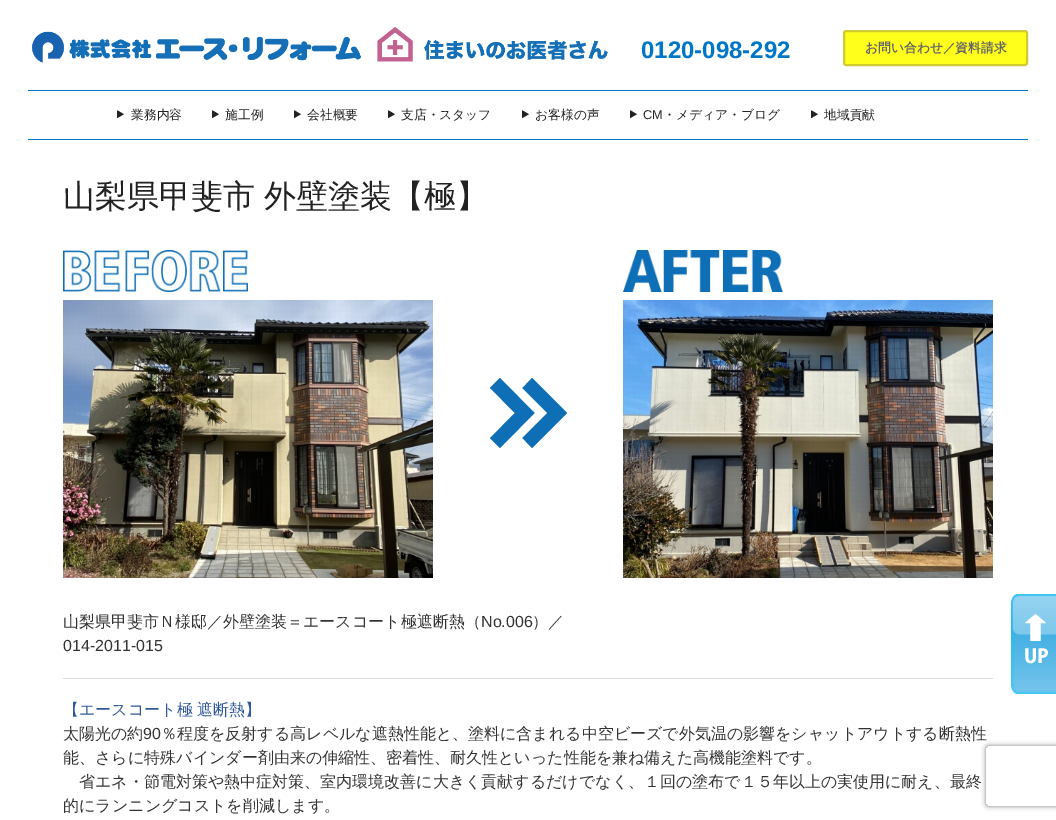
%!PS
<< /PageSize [1056 820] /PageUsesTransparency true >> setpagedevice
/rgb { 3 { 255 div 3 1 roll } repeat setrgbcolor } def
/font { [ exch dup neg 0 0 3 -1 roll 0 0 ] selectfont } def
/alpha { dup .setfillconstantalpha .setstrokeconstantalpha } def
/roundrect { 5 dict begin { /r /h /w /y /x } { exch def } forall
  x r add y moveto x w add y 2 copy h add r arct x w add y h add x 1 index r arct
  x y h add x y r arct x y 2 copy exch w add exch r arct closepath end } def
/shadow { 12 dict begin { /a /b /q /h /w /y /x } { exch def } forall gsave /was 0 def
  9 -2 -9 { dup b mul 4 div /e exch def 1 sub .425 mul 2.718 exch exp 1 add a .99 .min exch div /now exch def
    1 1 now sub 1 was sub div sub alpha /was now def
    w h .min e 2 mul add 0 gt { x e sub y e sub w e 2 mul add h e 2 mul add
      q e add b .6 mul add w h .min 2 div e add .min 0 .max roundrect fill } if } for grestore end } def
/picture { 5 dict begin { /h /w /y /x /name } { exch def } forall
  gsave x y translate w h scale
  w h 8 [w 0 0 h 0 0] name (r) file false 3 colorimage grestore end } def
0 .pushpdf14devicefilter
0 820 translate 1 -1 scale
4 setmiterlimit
255 255 255 rgb
0 0 1056 820 rectfill
(img/1.rgb) 32 27 576 36 picture
255 255 27 rgb
844 31 183 34 2 roundrect gsave fill grestore
206 203 51 rgb
2 setlinewidth
stroke
0 118 198 rgb
28 90 1000 1 rectfill
28 139 1000 1 rectfill
(img/2.rgb) 117 110 7 9 picture
(img/2.rgb) 212 110 7 9 picture
(img/2.rgb) 294 110 7 9 picture
(img/2.rgb) 388 110 7 9 picture
(img/2.rgb) 522 110 7 9 picture
(img/2.rgb) 630 110 7 9 picture
(img/2.rgb) 811 110 7 9 picture
(img/3.rgb) 63 250 185 42 picture
(img/4.rgb) 63 300 370 278 picture
(img/5.rgb) 490 378 77 70 picture
(img/6.rgb) 623 250 160 42 picture
(img/7.rgb) 623 300 370 278 picture
221 221 221 rgb
63 678 930 1 rectfill
(img/8.rgb) 1011 594 45 100 picture
gsave
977 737 moveto 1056 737 lineto 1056 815 lineto 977 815 lineto closepath 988 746 moveto 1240 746 lineto 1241 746 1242 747 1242 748 curveto 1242 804 lineto 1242 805 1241 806 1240 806 curveto 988 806 lineto 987 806 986 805 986 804 curveto 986 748 lineto 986 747 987 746 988 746 curveto closepath eoclip newpath
128 128 128 rgb
986 746 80 60 2 2.5 1 shadow
grestore
/LiberationSans-Bold 24 font
0 118 198 rgb
641 58 moveto (0120-098-292) show
/WenQuanYiZenHei-Bold 12.75 font
102 102 102 rgb
865 52 moveto (お問い合わせ／資料請求) show
/WenQuanYiZenHei-Medium 12.75 font
34 34 34 rgb
[
  [(業務内容) 131 119]
  [(施工例) 225 119]
  [(会社概要) 307 119]
  [(支店・スタッフ) 401 119]
  [(お客様の声) 535 119]
] { aload pop moveto show } forall
/LiberationSans-Regular 12.75 font
643 119 moveto (CM) show
/WenQuanYiZenHei-Medium 12.75 font
663 119 moveto (・メディア・ブログ) show
824 119 moveto (地域貢献) show
/WenQuanYiZenHei-Medium 32 font
63 207 moveto -1 0 32 (山梨県甲斐市 外壁塗装【極】) widthshow
/WenQuanYiZenHei-Medium 16 font
51 51 51 rgb
63 627 moveto (山梨県甲斐市Ｎ様邸／外壁塗装＝エースコート極遮断熱（) show
/LiberationSans-Regular 16 font
481 627 moveto (No.006) show
/WenQuanYiZenHei-Medium 16 font
532 627 moveto (）／) show
/LiberationSans-Regular 16 font
63 651 moveto (014-2011-015) show
/WenQuanYiZenHei-Medium 16 font
47 88 156 rgb
63 715 moveto (【エースコート極 遮断熱】) show
51 51 51 rgb
63 739 moveto (太陽光の約) show
/LiberationSans-Regular 16 font
143 739 moveto (90) show
/WenQuanYiZenHei-Medium 16 font
[
  [(％程度を反射する高レベルな遮熱性能と、塗料に含まれる中空ビーズで外気温の影響をシャットアウトする断熱性) 161 739]
  [(能、さらに特殊バインダー剤由来の伸縮性、密着性、耐久性といった性能を兼ね備えた高機能塗料です。) 63 763]
  [(省エネ・節電対策や熱中症対策、室内環境改善に大きく貢献するだけでなく、１回の塗布で１５年以上の実使用に耐え、最終) 79 787]
  [(的にランニングコストを削減します。) 63 811]
] { aload pop moveto show } forall
.poppdf14devicefilter showpage
